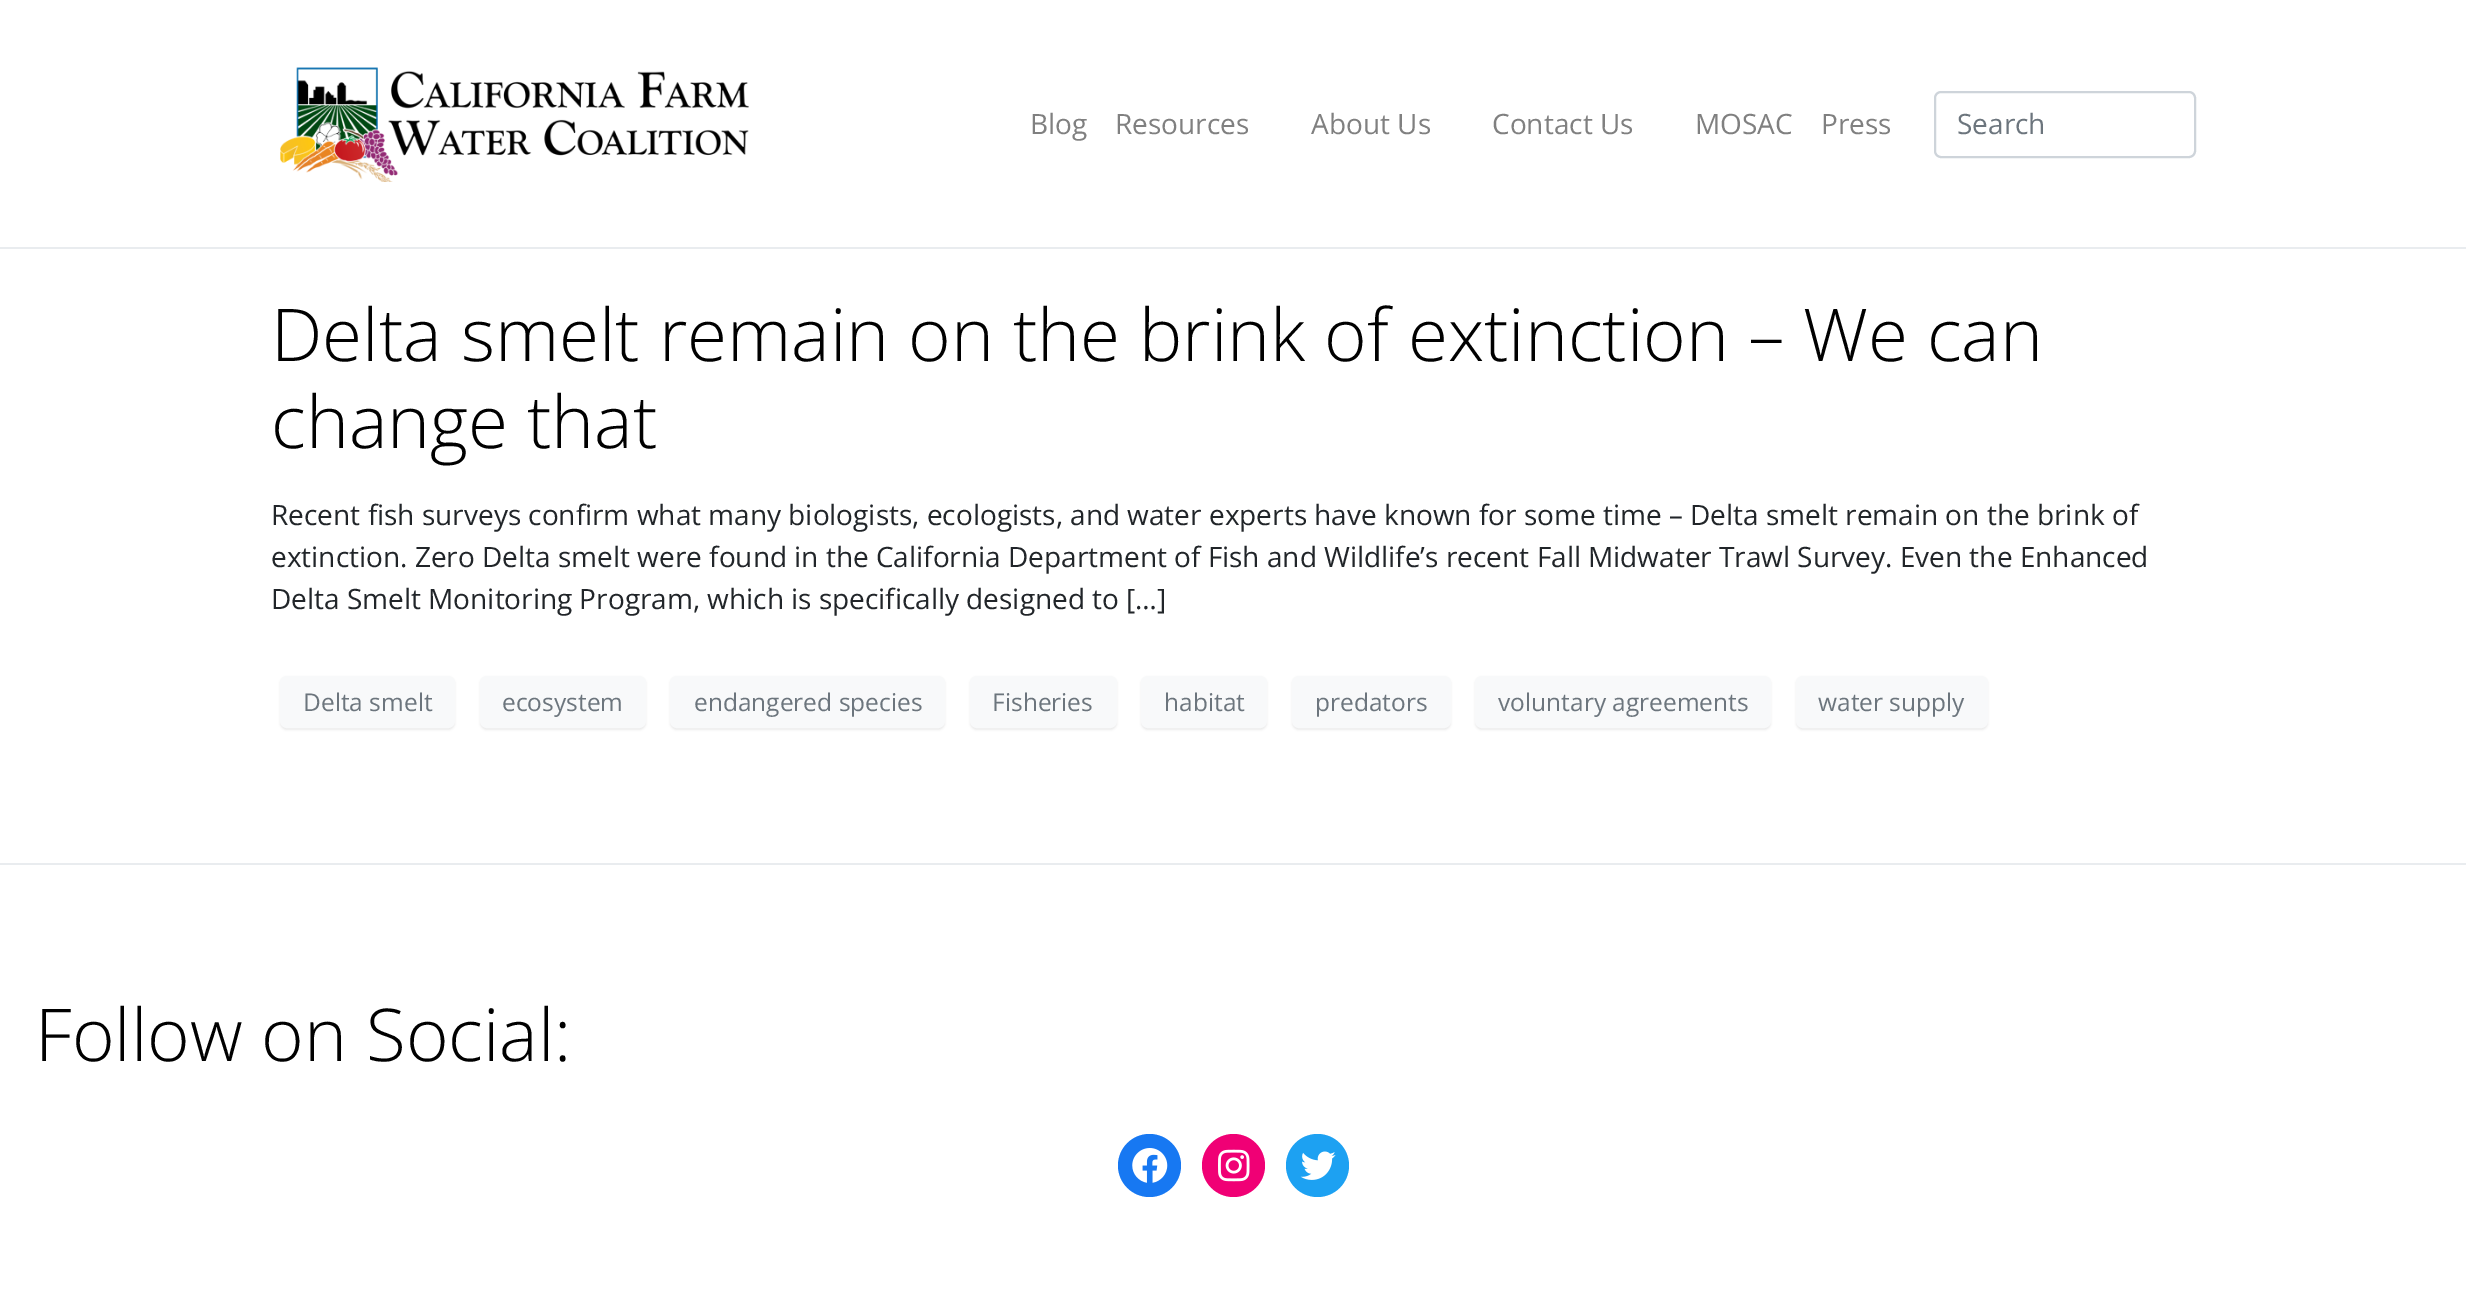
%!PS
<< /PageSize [2466 1289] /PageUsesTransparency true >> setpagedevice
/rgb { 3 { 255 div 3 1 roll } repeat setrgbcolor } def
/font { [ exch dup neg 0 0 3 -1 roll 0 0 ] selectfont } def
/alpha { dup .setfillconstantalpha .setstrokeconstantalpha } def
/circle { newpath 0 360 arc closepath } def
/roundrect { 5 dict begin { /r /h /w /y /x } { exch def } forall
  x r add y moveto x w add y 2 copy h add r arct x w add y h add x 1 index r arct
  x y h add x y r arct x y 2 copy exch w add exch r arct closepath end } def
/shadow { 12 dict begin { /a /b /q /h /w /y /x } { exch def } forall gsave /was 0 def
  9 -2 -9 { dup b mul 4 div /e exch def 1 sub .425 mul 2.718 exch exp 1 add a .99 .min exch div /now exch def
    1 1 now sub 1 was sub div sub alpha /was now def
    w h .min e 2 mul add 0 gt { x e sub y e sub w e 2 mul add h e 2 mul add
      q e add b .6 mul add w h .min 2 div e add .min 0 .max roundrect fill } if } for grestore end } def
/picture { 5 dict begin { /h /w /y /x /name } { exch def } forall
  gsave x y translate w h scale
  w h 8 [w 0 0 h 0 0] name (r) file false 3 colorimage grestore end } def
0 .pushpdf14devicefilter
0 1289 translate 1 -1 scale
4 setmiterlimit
255 255 255 rgb
0 0 2466 1289 rectfill
233 236 239 rgb
0 247 2466 2 rectfill
(img/1.rgb) 280 67 469 115 picture
206 212 218 rgb
2 setlinewidth
1935 92 260 65 6 roundrect stroke
0 0 0 rgb
280 677 175 53 7 1 0.07 shadow
248 249 250 rgb
281 677 173 50 6 roundrect gsave fill grestore
stroke
0 0 0 rgb
480 677 166 53 7 1 0.07 shadow
248 249 250 rgb
481 677 164 50 6 roundrect gsave fill grestore
stroke
0 0 0 rgb
670 677 275 53 7 1 0.07 shadow
248 249 250 rgb
671 677 273 50 6 roundrect gsave fill grestore
stroke
0 0 0 rgb
970 677 147 53 7 1 0.07 shadow
248 249 250 rgb
971 677 145 50 6 roundrect gsave fill grestore
stroke
0 0 0 rgb
1141 677 126 53 7 1 0.07 shadow
248 249 250 rgb
1142 677 124 50 6 roundrect gsave fill grestore
stroke
0 0 0 rgb
1292 677 159 53 7 1 0.07 shadow
248 249 250 rgb
1293 677 157 50 6 roundrect gsave fill grestore
stroke
0 0 0 rgb
1475 677 296 53 7 1 0.07 shadow
248 249 250 rgb
1476 677 294 50 6 roundrect gsave fill grestore
stroke
0 0 0 rgb
1796 677 192 53 7 1 0.07 shadow
248 249 250 rgb
1797 677 190 50 6 roundrect gsave fill grestore
stroke
233 236 239 rgb
0 863 2466 2 rectfill
23 120 242 rgb
1149.5 1165.5 31.5 circle fill
(img/2.rgb) 1132 1148 36 35 picture
240 0 117 rgb
1233.5 1165.5 31.5 circle fill
(img/3.rgb) 1218 1149 32 33 picture
29 161 242 rgb
1317.5 1165.5 31.5 circle fill
(img/4.rgb) 1300 1151 36 29 picture
/OpenSans-Regular 28 font
128 128 128 rgb
[
  [(Blog) 1030 134]
  [(Resources) 1115 134]
  [(About Us) 1311 134]
  [(Contact Us) 1492 134]
  [(MOSAC) 1695 134]
  [(Press) 1821 134]
] { aload pop moveto show } forall
108 117 125 rgb
1957 134 moveto (Search) show
/OpenSans-Light 72.8 font
0 0 0 rgb
271 361 moveto (Delta smelt remain on the brink of extinction – We can) show
271 448 moveto (change that) show
/OpenSans-Regular 28 font
33 37 41 rgb
[
  [(Recent fish surveys confirm what many biologists, ecologists, and water experts have known for some time – Delta smelt remain on the brink of) 271 525]
  [(extinction. Zero Delta smelt were found in the California Department of Fish and Wildlife’s recent Fall Midwater Trawl Survey. Even the Enhanced) 271 567]
  [(Delta Smelt Monitoring Program, which is specifically designed to […]) 271 609]
] { aload pop moveto show } forall
/OpenSans-Regular 24.5 font
108 117 125 rgb
[
  [(Delta smelt) 303 711]
  [(ecosystem) 502 711]
  [(endangered species) 694 711]
  [(Fisheries) 992 711]
  [(habitat) 1164 711]
  [(predators) 1315 711]
  [(voluntary agreements) 1498 711]
  [(water supply) 1818 711]
] { aload pop moveto show } forall
/OpenSans-Light 72.8 font
0 0 0 rgb
35 1061 moveto (Follow on Social:) show
.poppdf14devicefilter showpage
